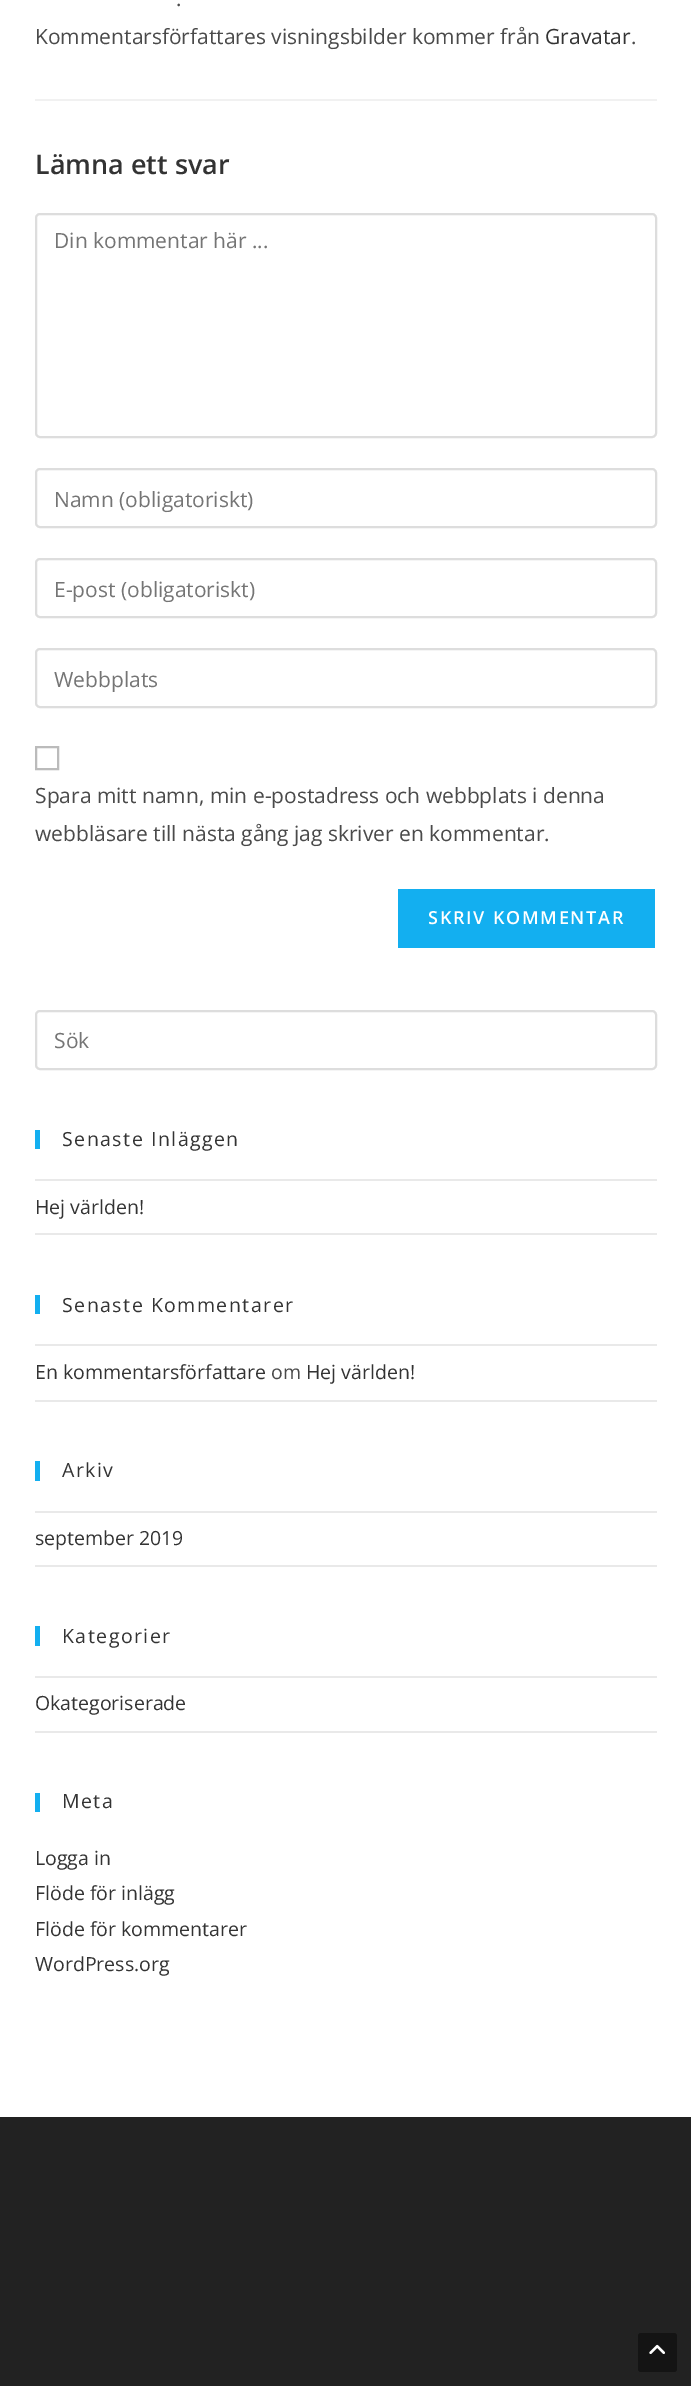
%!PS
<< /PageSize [691 2386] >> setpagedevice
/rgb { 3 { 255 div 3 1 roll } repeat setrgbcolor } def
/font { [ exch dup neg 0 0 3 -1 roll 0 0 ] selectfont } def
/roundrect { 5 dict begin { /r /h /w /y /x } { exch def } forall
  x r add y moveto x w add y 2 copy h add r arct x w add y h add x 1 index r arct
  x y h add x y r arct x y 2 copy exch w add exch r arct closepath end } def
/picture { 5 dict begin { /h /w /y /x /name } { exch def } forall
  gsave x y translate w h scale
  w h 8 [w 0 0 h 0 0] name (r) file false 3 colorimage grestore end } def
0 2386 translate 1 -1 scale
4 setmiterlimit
255 255 255 rgb
0 0 691 2386 rectfill
241 241 241 rgb
35 99 622 2 rectfill
221 221 221 rgb
2 setlinewidth
36 214 620 223 4 roundrect stroke
36 469 620 58 4 roundrect stroke
36 559 620 58 4 roundrect stroke
36 649 620 58 4 roundrect stroke
187 187 187 rgb
36 747 22 22 rectstroke
19 175 240 rgb
398 889 257 59 rectfill
221 221 221 rgb
36 1011 620 58 4 roundrect stroke
[
  [35 1130 5 19 19 175 240]
  [35 1179 622 2 233 233 233]
  [35 1233 622 2 233 233 233]
  [35 1295 5 19 19 175 240]
  [35 1344 622 2 233 233 233]
  [35 1400 622 2 233 233 233]
  [35 1461 5 20 19 175 240]
  [35 1511 622 2 233 233 233]
  [35 1565 622 2 233 233 233]
  [35 1626 5 20 19 175 240]
  [35 1676 622 2 233 233 233]
  [35 1731 622 2 233 233 233]
  [35 1793 5 19 19 175 240]
  [0 2117 691 269 34 34 34]
] { aload pop rgb rectfill } forall
20 20 20 rgb
638 2333 39 39 3 roundrect fill
(img/1.rgb) 649 2344 16 10 picture
/OpenSans-Regular 21 font
74 74 74 rgb
176 6 moveto (.) show
35 44 moveto (Kommentarsförfattares visningsbilder kommer från) show
51 51 51 rgb
545 44 moveto (Gravatar) show
74 74 74 rgb
631 44 moveto (.) show
/OpenSans-SemiBold 27 font
51 51 51 rgb
35 174 moveto (Lämna ett svar) show
/OpenSans-Regular 21 font
117 117 117 rgb
[
  [(Din kommentar här ...) 54 248]
  [(Namn \(obligatoriskt\)) 54 507]
  [(E-post \(obligatoriskt\)) 54 597]
  [(Webbplats) 54 687]
] { aload pop moveto show } forall
74 74 74 rgb
35 803 moveto (Spara mitt namn, min e-postadress och webbplats i denna) show
35 841 moveto (webbläsare till nästa gång jag skriver en kommentar.) show
/OpenSans-SemiBold 18 font
255 255 255 rgb
428 924 moveto 1.75 0 (SKRIV KOMMENTAR) ashow
/OpenSans-Regular 21 font
117 117 117 rgb
54 1048 moveto (Sök) show
/OpenSans-Regular 19.5 font
51 51 51 rgb
62 1146 moveto 1.5 0 (Senaste Inläggen) ashow
35 1214 moveto (Hej världen!) show
62 1312 moveto 1.5 0 (Senaste Kommentarer) ashow
35 1379 moveto (En kommentarsförfattare) show
74 74 74 rgb
271 1379 moveto (om) show
51 51 51 rgb
306 1379 moveto (Hej världen!) show
62 1477 moveto 1.5 0 (Arkiv) ashow
35 1545 moveto (september 2019) show
62 1643 moveto 1.5 0 (Kategorier) ashow
35 1710 moveto (Okategoriserade) show
62 1808 moveto 1.5 0 (Meta) ashow
[
  [(Logga in) 35 1865]
  [(Flöde för inlägg) 35 1900]
  [(Flöde för kommentarer) 35 1936]
  [(WordPress.org) 35 1971]
] { aload pop moveto show } forall
showpage
